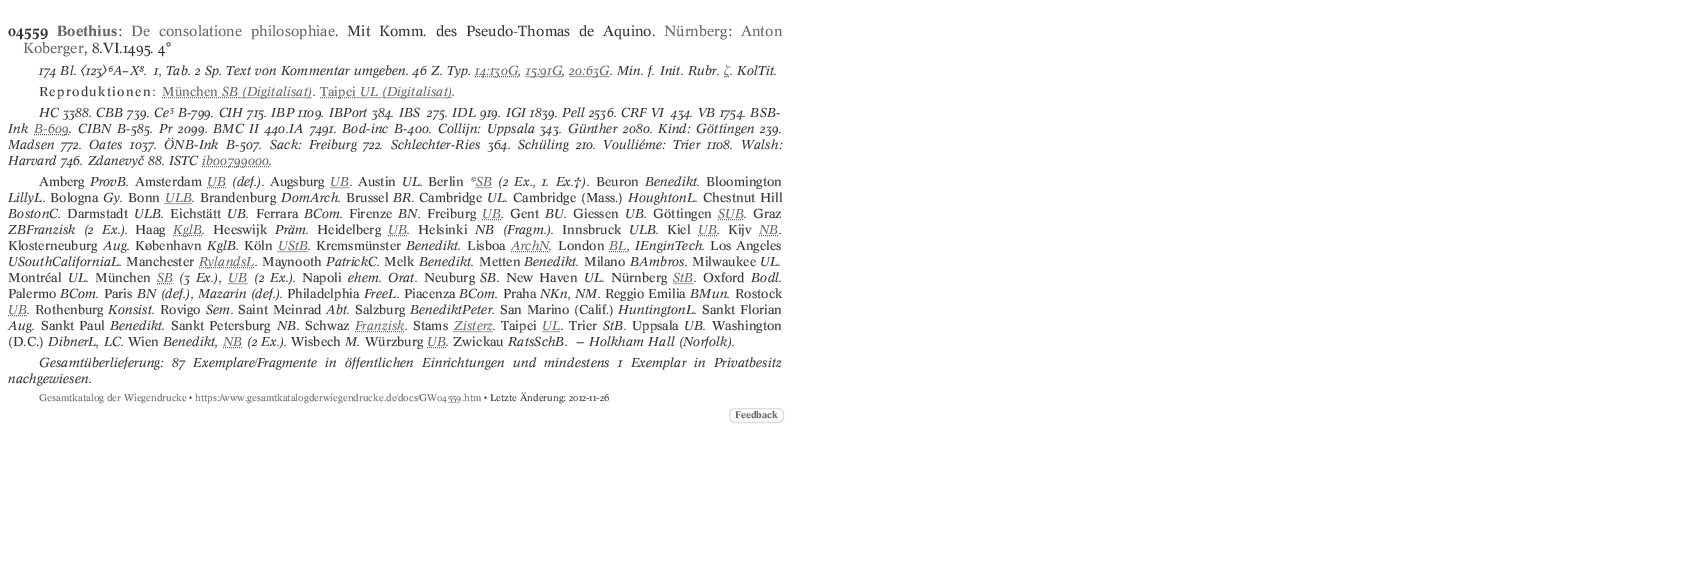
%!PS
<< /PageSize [1707 578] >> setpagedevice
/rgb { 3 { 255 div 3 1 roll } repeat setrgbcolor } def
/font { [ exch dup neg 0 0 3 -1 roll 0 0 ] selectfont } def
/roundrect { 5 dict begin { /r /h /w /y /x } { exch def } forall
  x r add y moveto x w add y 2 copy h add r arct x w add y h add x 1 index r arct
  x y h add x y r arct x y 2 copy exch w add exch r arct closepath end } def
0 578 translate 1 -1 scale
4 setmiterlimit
255 255 255 rgb
0 0 1707 578 rectfill
102 102 102 rgb
[1 1] 0 setdash
475 76.5 moveto 518.5 76.5 lineto stroke
525.5 76.5 moveto 562 76.5 lineto stroke
569.5 76.5 moveto 610 76.5 lineto stroke
[] 0 setdash
724 76.5 moveto 725 76.5 lineto 726 76.5 moveto 727 76.5 lineto 728 76.5 moveto 729 76.5 lineto stroke
[1 1] 0 setdash
162 97.5 moveto 218 97.5 lineto stroke
[] 0 setdash
218 97.5 moveto 219 97.5 lineto 220 97.5 moveto 221 97.5 lineto stroke
[1 1] 0 setdash
222 97.5 moveto 238.5 97.5 lineto stroke
238.5 97.5 moveto 312.5 97.5 lineto stroke
320 97.5 moveto 355.5 97.5 lineto stroke
[] 0 setdash
355.5 97.5 moveto 356.5 97.5 lineto 357.5 97.5 moveto 358.5 97.5 lineto stroke
[1 1] 0 setdash
359.5 97.5 moveto 377.5 97.5 lineto stroke
377.5 97.5 moveto 452 97.5 lineto stroke
34 134.5 moveto 69 134.5 lineto stroke
202 166.5 moveto 269 166.5 lineto stroke
207 187.5 moveto 226.5 187.5 lineto stroke
330.5 187.5 moveto 349.5 187.5 lineto stroke
475.5 187.5 moveto 492 187.5 lineto stroke
164.5 203.5 moveto 192 203.5 lineto stroke
482 219.5 moveto 501 219.5 lineto stroke
718 219.5 moveto 744 219.5 lineto stroke
173 235.5 moveto 202 235.5 lineto stroke
388 235.5 moveto 407.5 235.5 lineto stroke
698 235.5 moveto 717 235.5 lineto stroke
759 235.5 moveto 778.5 235.5 lineto stroke
277.5 251.5 moveto 308 251.5 lineto stroke
511 251.5 moveto 549.5 251.5 lineto stroke
609 251.5 moveto 626.5 251.5 lineto stroke
199 267.5 moveto 254.5 267.5 lineto stroke
157 283.5 moveto 173.5 283.5 lineto stroke
228.5 283.5 moveto 247.5 283.5 lineto stroke
673.5 283.5 moveto 694 283.5 lineto stroke
8 315.5 moveto 27 315.5 lineto stroke
355 331.5 moveto 405 331.5 lineto stroke
453.5 331.5 moveto 493 331.5 lineto stroke
542.5 331.5 moveto 560.5 331.5 lineto stroke
223 347.5 moveto 242.5 347.5 lineto stroke
427 347.5 moveto 446 347.5 lineto stroke
gsave
729 408 55 15 6 roundrect clip newpath
gsave 729 409 moveto 784 409 lineto 784 422 lineto 729 422 lineto closepath clip newpath
<< /ShadingType 2 /ColorSpace /DeviceRGB /Coords [757 409 757 422] /Extend [true true] /Function << /FunctionType 3 /Domain [0 1] /Functions [<< /FunctionType 2 /Domain [0 1] /C0 [1 1 1] /C1 [1 1 1] /N 1 >> << /FunctionType 2 /Domain [0 1] /C0 [1 1 1] /C1 [0.965 0.965 0.965] /N 1 >>] /Bounds [0.05] /Encode [0 1 0 1] >> >> shfill grestore
grestore
255 255 255 rgb
735 416 moveto 779 416 lineto 780 417 782 418 783 419 curveto 783 414 lineto 783 408 775 409 771 409 curveto 742 409 lineto 738 409 730 408 730 414 curveto 730 419 lineto 731 417 733 416 735 416 curveto closepath fill
220 220 220 rgb
[] 0 setdash
729.5 408.5 54 14 5.5 roundrect stroke
/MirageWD-Bold 14.4 font
51 51 51 rgb
8 36 moveto (04559) show
102 102 102 rgb
57 36 moveto (Boethius) show
/MirageWD-Regular 14.4 font
51 51 51 rgb
118 36 moveto (:) show
102 102 102 rgb
131 36 moveto 4.5 0 32 (De consolatione philosophiae) widthshow
51 51 51 rgb
335 36 moveto 4.5 0 32 (. Mit Komm. des) widthshow
466 36 moveto 4.5 0 32 (Pseudo-Thomas de Aquino.) widthshow
102 102 102 rgb
664 36 moveto (Nürnberg) show
51 51 51 rgb
728 36 moveto (:) show
102 102 102 rgb
741 36 moveto (Anton) show
23 53 moveto (Koberger) show
51 51 51 rgb
84 53 moveto (, 8.VI.1495. 4°) show
/MirageWD-Italic 12.8 font
39 75 moveto (174 Bl. 〈123〉⁶A–X⁸.) show
154 75 moveto (1, Tab. 2 Sp. Text von Kommentar umgeben. 46 Z. Typ.) show
102 102 102 rgb
475 75 moveto (14:130G) show
51 51 51 rgb
518 75 moveto (,) show
102 102 102 rgb
526 75 moveto (15:91G) show
569 75 moveto (20:63G) show
51 51 51 rgb
610 75 moveto (. Min. f. Init. Rubr.) show
102 102 102 rgb
724 75 moveto (ζ) show
51 51 51 rgb
730 75 moveto (. KolTit.) show
562 75 moveto (,) show
/MirageWD-Regular 12.8 font
39 96 moveto 1.25 0 (Reproduktionen:) ashow
102 102 102 rgb
162 96 moveto (München) show
/MirageWD-Italic 12.8 font
222 96 moveto (SB) show
242 96 moveto (\(Digitalisat\)) show
51 51 51 rgb
313 96 moveto (.) show
/MirageWD-Regular 12.8 font
102 102 102 rgb
320 96 moveto (Taipei) show
/MirageWD-Italic 12.8 font
360 96 moveto (UL) show
382 96 moveto (\(Digitalisat\)) show
51 51 51 rgb
[
  [(.) 452 96]
  [(HC 3388. CBB 739. Ce³ B-799. CIH 715. IBP 1109. IBPort 384. IBS) 39 117]
  [(275. IDL 919. IGI 1839. Pell 2536. CRF VI) 427 117]
  [(434. VB 1754. BSB-) 671 117]
  [(Ink) 8 133]
] { aload pop moveto show } forall
102 102 102 rgb
34 133 moveto (B-609) show
51 51 51 rgb
[
  [(.) 69 133]
  [(CIBN) 78 133]
  [(B-585.) 117 133]
  [(Pr) 159 133]
  [(2099.) 178 133]
] { aload pop moveto show } forall
213 133 moveto 2 0 32 (BMC II) widthshow
265 133 moveto 2 0 32 (440.IA 7491.) widthshow
342 133 moveto (Bod-inc) show
394 133 moveto (B-400.) show
438 133 moveto 2 0 32 (Collijn: Uppsala) widthshow
[
  [(343.) 540 133]
  [(Günther) 568 133]
  [(2080.) 623 133]
] { aload pop moveto show } forall
658 133 moveto 2 0 32 (Kind: Göttingen) widthshow
[
  [(239.) 760 133]
  [(Madsen) 8 149]
  [(772.) 61 149]
  [(Oates) 89 149]
  [(1037.) 130 149]
  [(ÖNB-Ink) 164 149]
  [(B-507.) 226 149]
] { aload pop moveto show } forall
270 149 moveto 3 0 32 (Sack: Freiburg) widthshow
[
  [(722.) 363 149]
  [(Schlechter-Ries) 391 149]
  [(364.) 488 149]
  [(Schüling) 518 149]
  [(210.) 576 149]
] { aload pop moveto show } forall
603 149 moveto 3 0 32 (Voulliéme: Trier) widthshow
[
  [(1108.) 707 149]
  [(Walsh:) 741 149]
  [(Harvard 746. Zdanevyč 88. ISTC) 8 165]
] { aload pop moveto show } forall
102 102 102 rgb
202 165 moveto (ib00799000) show
51 51 51 rgb
269 165 moveto (.) show
/MirageWD-Regular 12.8 font
39 186 moveto (Amberg) show
/MirageWD-Italic 12.8 font
90 186 moveto (ProvB.) show
/MirageWD-Regular 12.8 font
135 186 moveto (Amsterdam) show
/MirageWD-Italic 12.8 font
102 102 102 rgb
207 186 moveto (UB) show
51 51 51 rgb
232 186 moveto (\(def.\).) show
/MirageWD-Regular 12.8 font
270 186 moveto (Augsburg) show
/MirageWD-Italic 12.8 font
102 102 102 rgb
330 186 moveto (UB) show
51 51 51 rgb
350 186 moveto (.) show
/MirageWD-Regular 12.8 font
358 186 moveto (Austin) show
/MirageWD-Italic 12.8 font
402 186 moveto (UL.) show
/MirageWD-Regular 12.8 font
428 186 moveto (Berlin) show
/MirageWD-Italic 12.8 font
470 186 moveto (*) show
102 102 102 rgb
476 186 moveto (SB) show
51 51 51 rgb
498 186 moveto 2 0 32 (\(2 Ex., 1. Ex.†\).) widthshow
/MirageWD-Regular 12.8 font
596 186 moveto (Beuron) show
/MirageWD-Italic 12.8 font
645 186 moveto (Benedikt.) show
/MirageWD-Regular 12.8 font
706 186 moveto (Bloomington) show
/MirageWD-Italic 12.8 font
8 202 moveto (LillyL.) show
/MirageWD-Regular 12.8 font
50 202 moveto (Bologna) show
/MirageWD-Italic 12.8 font
103 202 moveto (Gy.) show
/MirageWD-Regular 12.8 font
128 202 moveto (Bonn) show
/MirageWD-Italic 12.8 font
102 102 102 rgb
165 202 moveto (ULB) show
51 51 51 rgb
192 202 moveto (.) show
/MirageWD-Regular 12.8 font
200 202 moveto (Brandenburg) show
/MirageWD-Italic 12.8 font
281 202 moveto (DomArch.) show
/MirageWD-Regular 12.8 font
346 202 moveto (Brussel) show
/MirageWD-Italic 12.8 font
393 202 moveto (BR.) show
/MirageWD-Regular 12.8 font
419 202 moveto (Cambridge) show
/MirageWD-Italic 12.8 font
487 202 moveto (UL.) show
/MirageWD-Regular 12.8 font
513 202 moveto 1 0 32 (Cambridge \(Mass.\)) widthshow
/MirageWD-Italic 12.8 font
628 202 moveto (HoughtonL.) show
/MirageWD-Regular 12.8 font
703 202 moveto 1 0 32 (Chestnut Hill) widthshow
/MirageWD-Italic 12.8 font
8 218 moveto (BostonC.) show
/MirageWD-Regular 12.8 font
67 218 moveto (Darmstadt) show
/MirageWD-Italic 12.8 font
134 218 moveto (ULB.) show
/MirageWD-Regular 12.8 font
170 218 moveto (Eichstätt) show
/MirageWD-Italic 12.8 font
227 218 moveto (UB.) show
/MirageWD-Regular 12.8 font
256 218 moveto (Ferrara) show
/MirageWD-Italic 12.8 font
304 218 moveto (BCom.) show
/MirageWD-Regular 12.8 font
349 218 moveto (Firenze) show
/MirageWD-Italic 12.8 font
398 218 moveto (BN.) show
/MirageWD-Regular 12.8 font
427 218 moveto (Freiburg) show
/MirageWD-Italic 12.8 font
102 102 102 rgb
482 218 moveto (UB) show
51 51 51 rgb
501 218 moveto (.) show
/MirageWD-Regular 12.8 font
510 218 moveto (Gent) show
/MirageWD-Italic 12.8 font
545 218 moveto (BU.) show
/MirageWD-Regular 12.8 font
573 218 moveto (Giessen) show
/MirageWD-Italic 12.8 font
625 218 moveto (UB.) show
/MirageWD-Regular 12.8 font
653 218 moveto (Göttingen) show
/MirageWD-Italic 12.8 font
102 102 102 rgb
718 218 moveto (SUB) show
51 51 51 rgb
744 218 moveto (.) show
/MirageWD-Regular 12.8 font
753 218 moveto (Graz) show
/MirageWD-Italic 12.8 font
8 234 moveto 4 0 32 (ZBFranzisk \(2 Ex.\).) widthshow
/MirageWD-Regular 12.8 font
135 234 moveto (Haag) show
/MirageWD-Italic 12.8 font
102 102 102 rgb
173 234 moveto (KglB) show
51 51 51 rgb
202 234 moveto (.) show
/MirageWD-Regular 12.8 font
213 234 moveto (Heeswijk) show
/MirageWD-Italic 12.8 font
275 234 moveto (Präm.) show
/MirageWD-Regular 12.8 font
317 234 moveto (Heidelberg) show
/MirageWD-Italic 12.8 font
102 102 102 rgb
388 234 moveto (UB) show
51 51 51 rgb
407 234 moveto (.) show
/MirageWD-Regular 12.8 font
418 234 moveto (Helsinki) show
/MirageWD-Italic 12.8 font
475 234 moveto 4 0 32 (NB \(Fragm.\).) widthshow
/MirageWD-Regular 12.8 font
562 234 moveto (Innsbruck) show
/MirageWD-Italic 12.8 font
629 234 moveto (ULB.) show
/MirageWD-Regular 12.8 font
667 234 moveto (Kiel) show
/MirageWD-Italic 12.8 font
102 102 102 rgb
698 234 moveto (UB) show
51 51 51 rgb
717 234 moveto (.) show
/MirageWD-Regular 12.8 font
728 234 moveto (Kijv) show
/MirageWD-Italic 12.8 font
102 102 102 rgb
759 234 moveto (NB) show
51 51 51 rgb
779 234 moveto (.) show
/MirageWD-Regular 12.8 font
8 250 moveto (Klosterneuburg) show
/MirageWD-Italic 12.8 font
103 250 moveto (Aug.) show
/MirageWD-Regular 12.8 font
135 250 moveto (København) show
/MirageWD-Italic 12.8 font
207 250 moveto (KglB.) show
/MirageWD-Regular 12.8 font
244 250 moveto (Köln) show
/MirageWD-Italic 12.8 font
102 102 102 rgb
278 250 moveto (UStB) show
51 51 51 rgb
308 250 moveto (.) show
/MirageWD-Regular 12.8 font
316 250 moveto (Kremsmünster) show
/MirageWD-Italic 12.8 font
406 250 moveto (Benedikt.) show
/MirageWD-Regular 12.8 font
467 250 moveto (Lisboa) show
/MirageWD-Italic 12.8 font
102 102 102 rgb
511 250 moveto (ArchN) show
51 51 51 rgb
549 250 moveto (.) show
/MirageWD-Regular 12.8 font
558 250 moveto (London) show
/MirageWD-Italic 12.8 font
102 102 102 rgb
609 250 moveto (BL) show
51 51 51 rgb
627 250 moveto 1 0 32 (, IEnginTech.) widthshow
/MirageWD-Regular 12.8 font
710 250 moveto 1 0 32 (Los Angeles) widthshow
/MirageWD-Italic 12.8 font
8 266 moveto (USouthCaliforniaL.) show
/MirageWD-Regular 12.8 font
126 266 moveto (Manchester) show
/MirageWD-Italic 12.8 font
102 102 102 rgb
199 266 moveto (RylandsL) show
51 51 51 rgb
255 266 moveto (.) show
/MirageWD-Regular 12.8 font
262 266 moveto (Maynooth) show
/MirageWD-Italic 12.8 font
326 266 moveto (PatrickC.) show
/MirageWD-Regular 12.8 font
384 266 moveto (Melk) show
/MirageWD-Italic 12.8 font
419 266 moveto (Benedikt.) show
/MirageWD-Regular 12.8 font
479 266 moveto (Metten) show
/MirageWD-Italic 12.8 font
524 266 moveto (Benedikt.) show
/MirageWD-Regular 12.8 font
584 266 moveto (Milano) show
/MirageWD-Italic 12.8 font
630 266 moveto (BAmbros.) show
/MirageWD-Regular 12.8 font
692 266 moveto (Milwaukee) show
/MirageWD-Italic 12.8 font
760 266 moveto (UL.) show
/MirageWD-Regular 12.8 font
8 282 moveto (Montréal) show
/MirageWD-Italic 12.8 font
68 282 moveto (UL.) show
/MirageWD-Regular 12.8 font
95 282 moveto (München) show
/MirageWD-Italic 12.8 font
102 102 102 rgb
157 282 moveto (SB) show
51 51 51 rgb
179 282 moveto 2 0 32 (\(3 Ex.\),) widthshow
102 102 102 rgb
228 282 moveto (UB) show
51 51 51 rgb
254 282 moveto 2 0 32 (\(2 Ex.\).) widthshow
/MirageWD-Regular 12.8 font
302 282 moveto (Napoli) show
/MirageWD-Italic 12.8 font
348 282 moveto 2 0 32 (ehem. Orat.) widthshow
/MirageWD-Regular 12.8 font
424 282 moveto (Neuburg) show
/MirageWD-Italic 12.8 font
480 282 moveto (SB.) show
/MirageWD-Regular 12.8 font
506 282 moveto 2 0 32 (New Haven) widthshow
/MirageWD-Italic 12.8 font
584 282 moveto (UL.) show
/MirageWD-Regular 12.8 font
611 282 moveto (Nürnberg) show
/MirageWD-Italic 12.8 font
102 102 102 rgb
673 282 moveto (StB) show
51 51 51 rgb
694 282 moveto (.) show
/MirageWD-Regular 12.8 font
703 282 moveto (Oxford) show
/MirageWD-Italic 12.8 font
751 282 moveto (Bodl.) show
/MirageWD-Regular 12.8 font
8 298 moveto (Palermo) show
/MirageWD-Italic 12.8 font
60 298 moveto (BCom.) show
/MirageWD-Regular 12.8 font
104 298 moveto (Paris) show
/MirageWD-Italic 12.8 font
137 298 moveto (BN \(def.\), Mazarin \(def.\).) show
/MirageWD-Regular 12.8 font
287 298 moveto (Philadelphia) show
/MirageWD-Italic 12.8 font
364 298 moveto (FreeL.) show
/MirageWD-Regular 12.8 font
404 298 moveto (Piacenza) show
/MirageWD-Italic 12.8 font
459 298 moveto (BCom.) show
/MirageWD-Regular 12.8 font
503 298 moveto (Praha) show
/MirageWD-Italic 12.8 font
540 298 moveto (NKn, NM.) show
/MirageWD-Regular 12.8 font
605 298 moveto (Reggio Emilia) show
/MirageWD-Italic 12.8 font
690 298 moveto (BMun.) show
/MirageWD-Regular 12.8 font
735 298 moveto (Rostock) show
/MirageWD-Italic 12.8 font
102 102 102 rgb
8 314 moveto (UB) show
51 51 51 rgb
27 314 moveto (.) show
/MirageWD-Regular 12.8 font
35 314 moveto (Rothenburg) show
/MirageWD-Italic 12.8 font
108 314 moveto (Konsist.) show
/MirageWD-Regular 12.8 font
160 314 moveto (Rovigo) show
/MirageWD-Italic 12.8 font
206 314 moveto (Sem.) show
/MirageWD-Regular 12.8 font
238 314 moveto 1 0 32 (Saint Meinrad) widthshow
/MirageWD-Italic 12.8 font
326 314 moveto (Abt.) show
/MirageWD-Regular 12.8 font
355 314 moveto (Salzburg) show
/MirageWD-Italic 12.8 font
410 314 moveto (BenediktPeter.) show
/MirageWD-Regular 12.8 font
500 314 moveto 1 0 32 (San Marino \(Calif.\)) widthshow
/MirageWD-Italic 12.8 font
618 314 moveto (HuntingtonL.) show
/MirageWD-Regular 12.8 font
702 314 moveto 1 0 32 (Sankt Florian) widthshow
/MirageWD-Italic 12.8 font
8 330 moveto (Aug.) show
/MirageWD-Regular 12.8 font
41 330 moveto 1 0 32 (Sankt Paul) widthshow
/MirageWD-Italic 12.8 font
110 330 moveto (Benedikt.) show
/MirageWD-Regular 12.8 font
171 330 moveto 1 0 32 (Sankt Petersburg) widthshow
/MirageWD-Italic 12.8 font
277 330 moveto (NB.) show
/MirageWD-Regular 12.8 font
305 330 moveto (Schwaz) show
/MirageWD-Italic 12.8 font
102 102 102 rgb
355 330 moveto (Franzisk) show
51 51 51 rgb
405 330 moveto (.) show
/MirageWD-Regular 12.8 font
413 330 moveto (Stams) show
/MirageWD-Italic 12.8 font
102 102 102 rgb
454 330 moveto (Zisterz) show
51 51 51 rgb
493 330 moveto (.) show
/MirageWD-Regular 12.8 font
501 330 moveto (Taipei) show
/MirageWD-Italic 12.8 font
102 102 102 rgb
542 330 moveto (UL) show
51 51 51 rgb
561 330 moveto (.) show
/MirageWD-Regular 12.8 font
569 330 moveto (Trier) show
/MirageWD-Italic 12.8 font
603 330 moveto (StB.) show
/MirageWD-Regular 12.8 font
632 330 moveto (Uppsala) show
/MirageWD-Italic 12.8 font
684 330 moveto (UB.) show
/MirageWD-Regular 12.8 font
712 330 moveto (Washington) show
8 346 moveto (\(D.C.\)) show
/MirageWD-Italic 12.8 font
48 346 moveto (DibnerL, LC.) show
/MirageWD-Regular 12.8 font
128 346 moveto (Wien) show
/MirageWD-Italic 12.8 font
163 346 moveto (Benedikt,) show
102 102 102 rgb
223 346 moveto (NB) show
51 51 51 rgb
247 346 moveto (\(2 Ex.\).) show
/MirageWD-Regular 12.8 font
291 346 moveto (Wisbech) show
/MirageWD-Italic 12.8 font
345 346 moveto (M.) show
/MirageWD-Regular 12.8 font
365 346 moveto (Würzburg) show
/MirageWD-Italic 12.8 font
102 102 102 rgb
427 346 moveto (UB) show
51 51 51 rgb
446 346 moveto (.) show
/MirageWD-Regular 12.8 font
453 346 moveto (Zwickau) show
/MirageWD-Italic 12.8 font
508 346 moveto (RatsSchB.  — Holkham Hall \(Norfolk\).) show
39 367 moveto 4 0 32 (Gesamtüberlieferung: 87 Exemplare/Fragmente in öffentlichen Einrichtungen und mindestens 1 Exemplar in Privatbesitz) widthshow
8 383 moveto (nachgewiesen.) show
/MirageWD-Regular 9.6 font
102 102 102 rgb
39 401 moveto (Gesamtkatalog der Wiegendrucke) show
51 51 51 rgb
189 401 moveto (•) show
102 102 102 rgb
195 401 moveto (https://www.gesamtkatalogderwiegendrucke.de/docs/GW04559.htm) show
51 51 51 rgb
484 401 moveto (• Letzte Änderung: 2012-11-26) show
/MirageWD-Bold 9.6 font
102 102 102 rgb
735 418 moveto (Feedback) show
showpage
